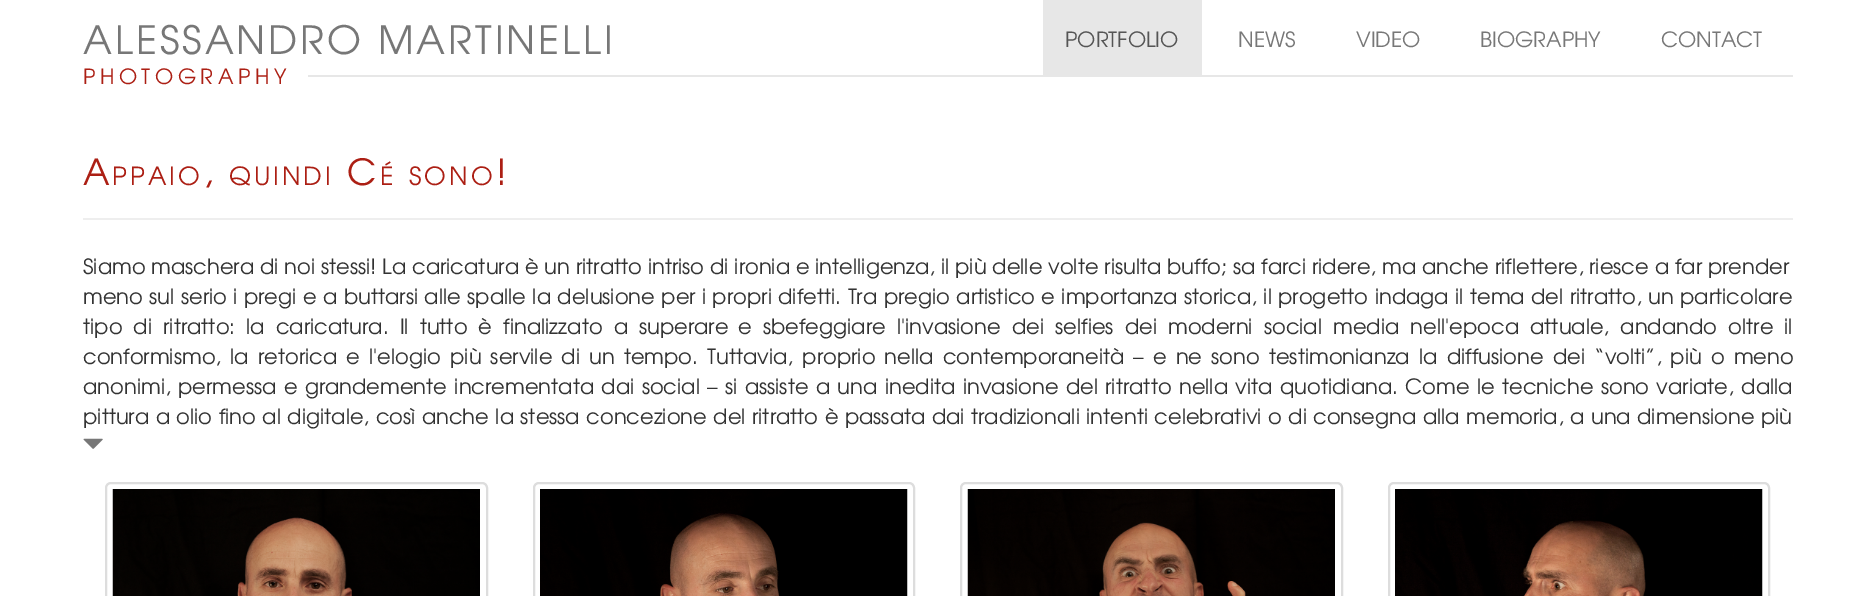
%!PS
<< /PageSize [1875 596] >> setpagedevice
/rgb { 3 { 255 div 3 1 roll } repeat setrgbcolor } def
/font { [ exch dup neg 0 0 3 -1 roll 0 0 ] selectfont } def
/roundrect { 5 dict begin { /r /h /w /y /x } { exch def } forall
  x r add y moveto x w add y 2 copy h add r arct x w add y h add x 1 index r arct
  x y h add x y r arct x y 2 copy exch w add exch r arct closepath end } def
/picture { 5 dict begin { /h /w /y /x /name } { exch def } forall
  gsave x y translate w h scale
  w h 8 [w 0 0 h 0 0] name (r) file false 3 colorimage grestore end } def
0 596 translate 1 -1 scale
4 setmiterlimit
255 255 255 rgb
0 0 1875 596 rectfill
[
  [1043 0 159 75 231 231 231]
  [308 75 1485 2 231 231 231]
  [83 218 1710 2 238 238 238]
] { aload pop rgb rectfill } forall
(img/1.rgb) 83 438 20 11 picture
(img/2.rgb) 112 489 368 107 picture
221 221 221 rgb
2 setlinewidth
106 483 381 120 5 roundrect stroke
(img/3.rgb) 540 489 368 107 picture
534 483 380 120 5 roundrect stroke
(img/4.rgb) 967 489 368 107 picture
961 483 381 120 5 roundrect stroke
(img/5.rgb) 1395 489 368 107 picture
1389 483 380 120 5 roundrect stroke
/TeXGyreAdventor-Regular 39 font
119 119 119 rgb
83 54 moveto 3 0 (ALESSANDRO MARTINELLI) ashow
/TeXGyreAdventor-Regular 21 font
85 85 85 rgb
1065 47 moveto (PORTFOLIO) show
119 119 119 rgb
[
  [(NEWS) 1238 47]
  [(VIDEO) 1356 47]
  [(BIOGRAPHY) 1480 47]
  [(CONTACT) 1661 47]
] { aload pop moveto show } forall
172 31 20 rgb
83 84 moveto 4.5 0 (PHOTOGRAPHY) ashow
/TeXGyreAdventor-Regular 36 font
83 185 moveto 3 0 (A) ashow
/TeXGyreAdventor-Regular 25 font
112 185 moveto 3 0 (PPAIO) ashow
/TeXGyreAdventor-Regular 36 font
203 185 moveto 3 0 (,) ashow
/TeXGyreAdventor-Regular 25 font
229 185 moveto 3 0 (QUINDI) ashow
/TeXGyreAdventor-Regular 36 font
347 185 moveto 3 0 (C) ashow
/TeXGyreAdventor-Regular 25 font
380 185 moveto 3 0 (É) ashow
409 185 moveto 3 0 (SONO) ashow
/TeXGyreAdventor-Regular 36 font
496 185 moveto 3 0 (!) ashow
/TeXGyreAdventor-Regular 21 font
51 51 51 rgb
83 274 moveto (Siamo maschera di noi stessi! La caricatura è un ritratto intriso di ironia e intelligenza, il più delle volte risulta buffo; sa farci ridere, ma anche riflettere, riesce a far prender) show
83 304 moveto 0.6 0 32 (meno sul serio i pregi e a buttarsi alle spalle la delusione per i propri difetti. Tra pregio artistico e importanza storica, il progetto indaga) widthshow
1455 304 moveto 0.6 0 32 (il tema del ritratto, un particolare) widthshow
83 334 moveto 5.25 0 32 (tipo di ritratto: la caricatura. Il tutto è finalizzato a superare) widthshow
738 334 moveto 5.25 0 32 (e sbefeggiare l'invasione dei selfies dei moderni social media nell'epoca attuale, andando oltre il) widthshow
83 364 moveto 3.3 0 32 (conformismo, la retorica e l'elogio più servile di un tempo. Tuttavia, proprio nella contemporaneità – e ne sono testimonianza la diffusione dei “volti”, più o meno) widthshow
83 394 moveto 1.55 0 32 (anonimi, permessa e grandemente incrementata dai social – si assiste a una inedita invasione del ritratto nella vita quotidiana. Come le tecniche sono variate, dalla) widthshow
83 424 moveto 0.6 0 32 (pittura a olio fino al digitale, così anche la stessa concezione del ritratto è passata dai tradizionali intenti celebrativi o di consegna alla memoria, a una dimensione più) widthshow
showpage
